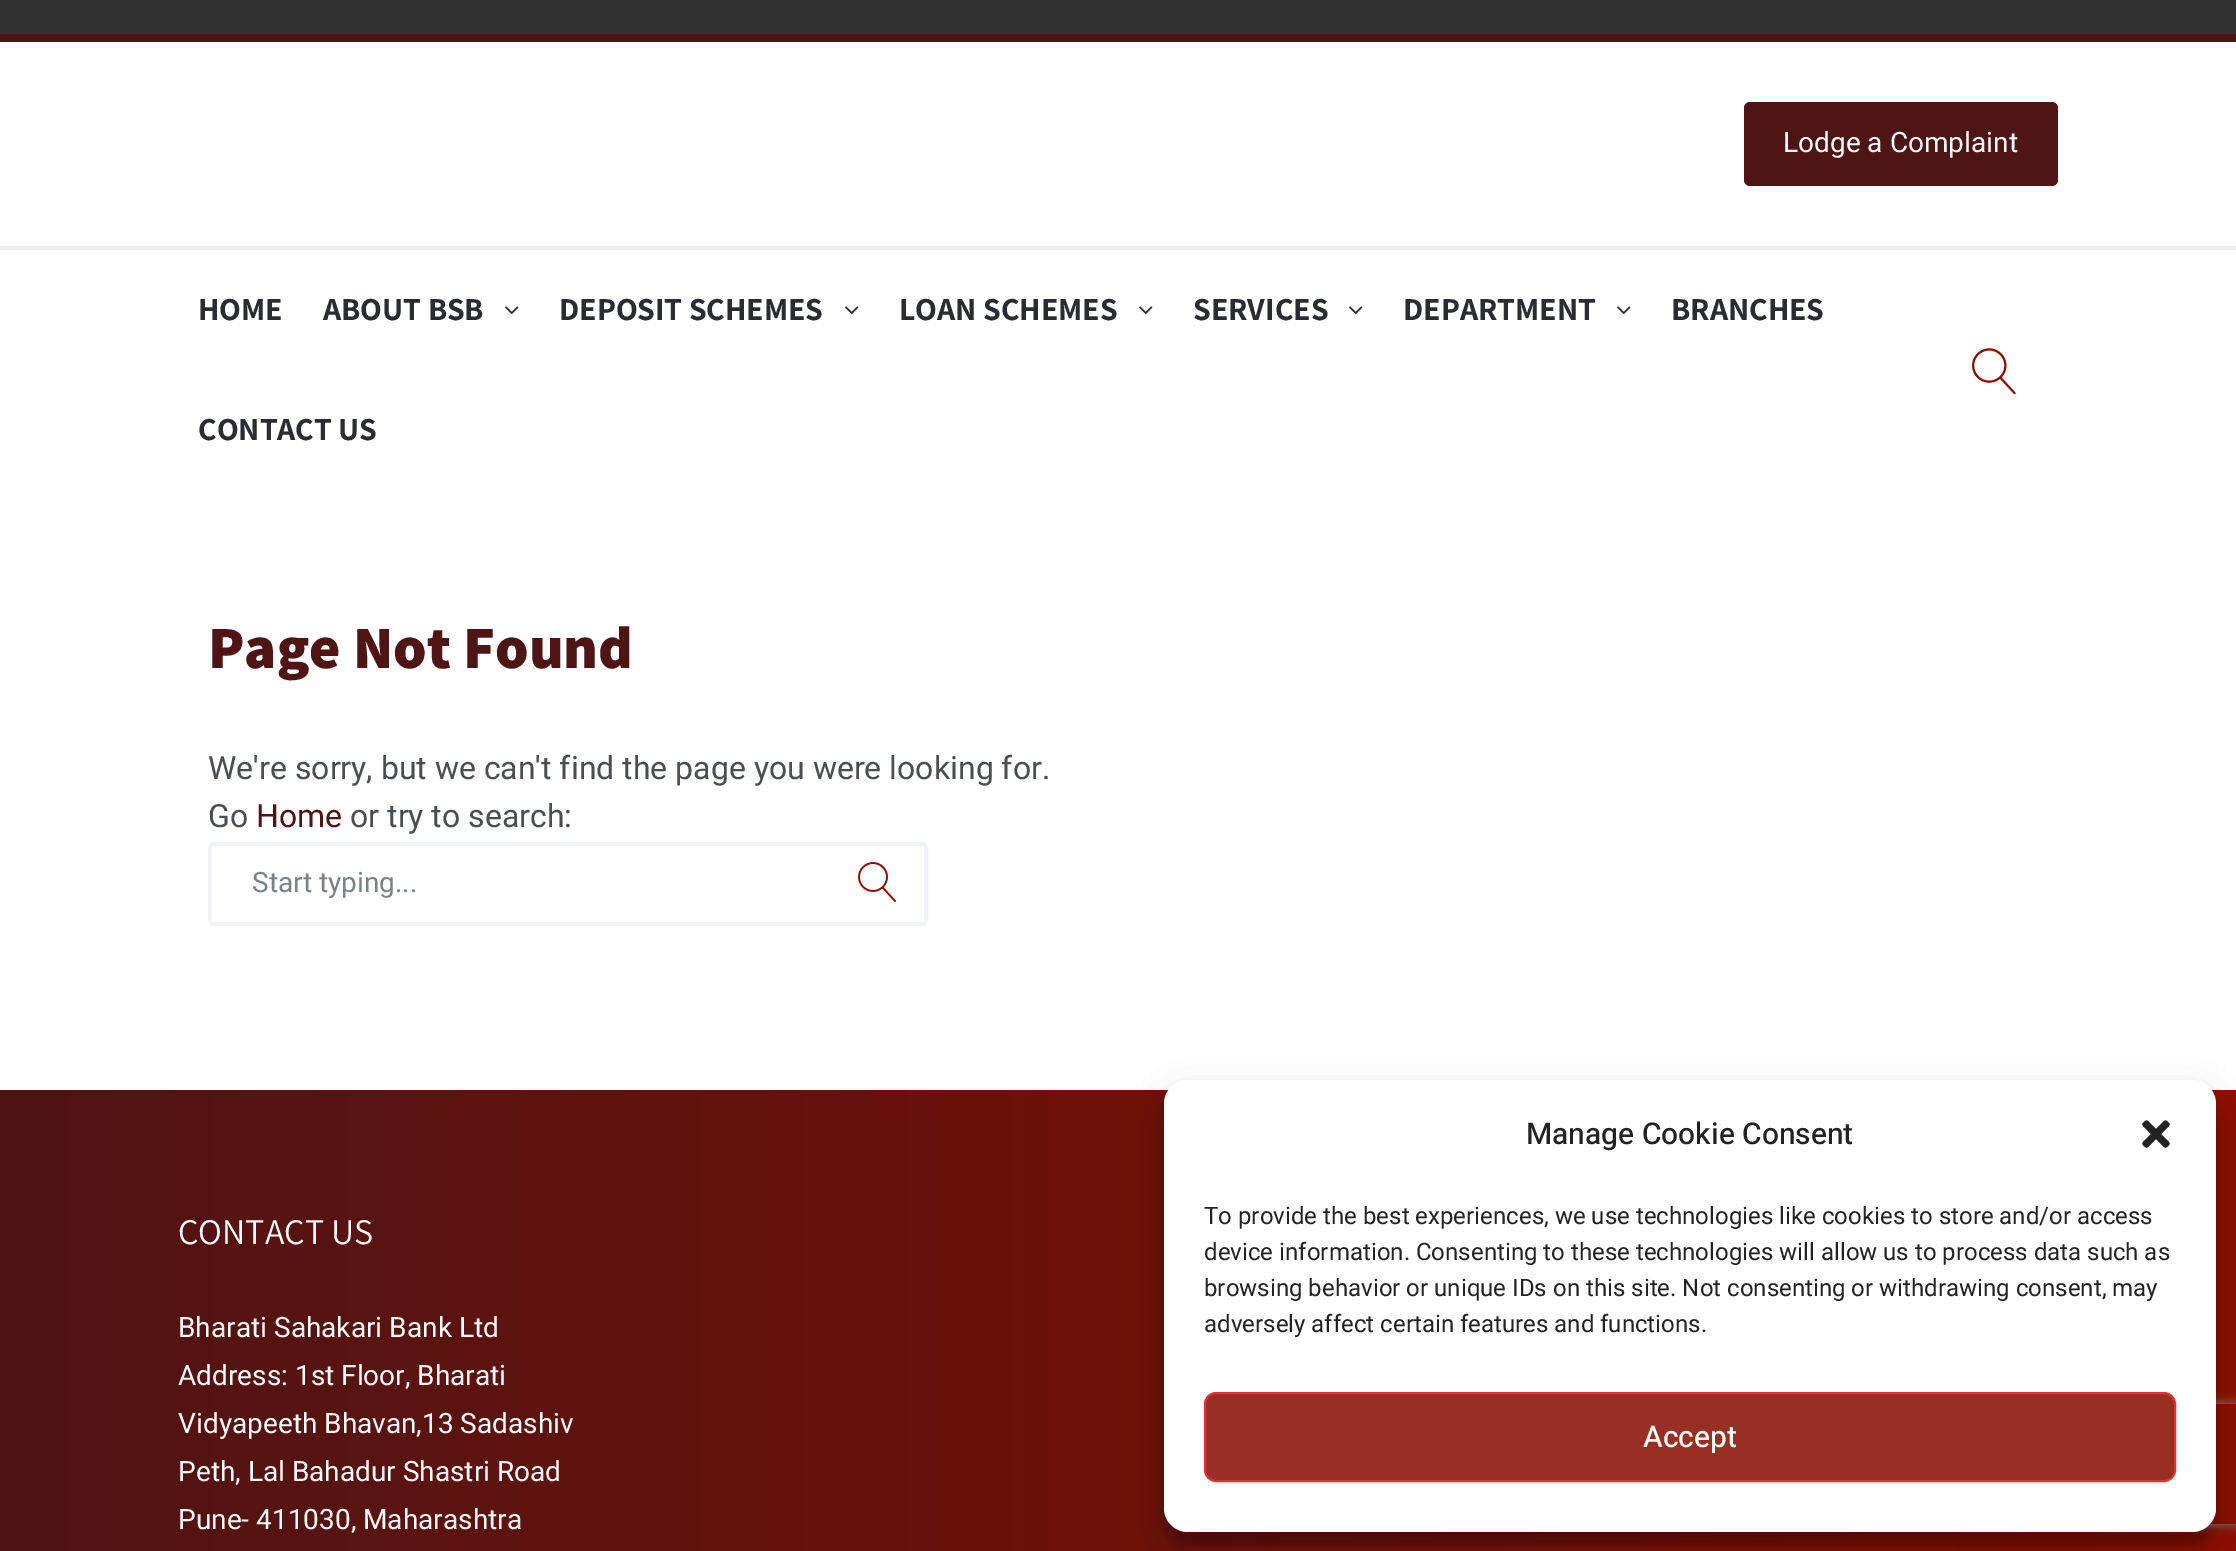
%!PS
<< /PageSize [2236 1551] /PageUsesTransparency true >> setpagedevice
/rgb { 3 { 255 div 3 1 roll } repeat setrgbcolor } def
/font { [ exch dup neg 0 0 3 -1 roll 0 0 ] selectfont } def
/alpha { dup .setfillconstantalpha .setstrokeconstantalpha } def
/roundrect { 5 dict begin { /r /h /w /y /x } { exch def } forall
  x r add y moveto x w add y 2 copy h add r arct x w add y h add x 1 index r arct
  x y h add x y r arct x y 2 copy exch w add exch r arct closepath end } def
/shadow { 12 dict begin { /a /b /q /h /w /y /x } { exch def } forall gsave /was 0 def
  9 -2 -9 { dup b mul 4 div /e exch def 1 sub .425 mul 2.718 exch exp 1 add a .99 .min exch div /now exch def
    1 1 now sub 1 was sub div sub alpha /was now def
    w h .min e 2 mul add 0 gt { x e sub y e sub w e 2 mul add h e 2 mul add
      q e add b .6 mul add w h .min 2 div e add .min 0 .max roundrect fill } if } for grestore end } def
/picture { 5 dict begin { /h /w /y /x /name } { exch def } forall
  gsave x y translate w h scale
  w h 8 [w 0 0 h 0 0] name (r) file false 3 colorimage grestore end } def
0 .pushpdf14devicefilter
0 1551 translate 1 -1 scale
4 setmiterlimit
255 255 255 rgb
0 0 2236 1551 rectfill
[
  [0 0 2236 34 49 49 49]
  [0 34 2236 8 79 20 20]
  [0 246 2236 4 237 237 237]
] { aload pop rgb rectfill } forall
79 20 20 rgb
1744 102 314 84 6 roundrect fill
(img/1.rgb) 505 306 14 9 picture
(img/1.rgb) 845 306 14 9 picture
(img/1.rgb) 1139 306 14 9 picture
(img/1.rgb) 1349 306 14 9 picture
(img/1.rgb) 1617 306 14 9 picture
(img/2.rgb) 1972 348 44 47 picture
242 243 246 rgb
4 setlinewidth
210 844 716 80 4 roundrect stroke
(img/3.rgb) 858 862 38 40 picture
gsave 0 1090 moveto 2236 1090 lineto 2236 1551 lineto 0 1551 lineto closepath clip newpath
<< /ShadingType 2 /ColorSpace /DeviceRGB /Coords [0 1546 2236 1546] /Extend [true true] /Function << /FunctionType 2 /Domain [0 1] /C0 [0.31 0.078 0.078] /C1 [0.557 0.059 0.004] /N 1 >> >> shfill grestore
0 0 0 rgb
1164 1092 1052 452 24 6 0.23 shadow
1164 1100 1052 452 24 20 0.19 shadow
gsave
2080 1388 moveto 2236 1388 lineto 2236 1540 lineto 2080 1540 lineto closepath 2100 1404 moveto 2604 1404 lineto 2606 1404 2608 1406 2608 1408 curveto 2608 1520 lineto 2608 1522 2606 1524 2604 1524 curveto 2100 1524 lineto 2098 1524 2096 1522 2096 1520 curveto 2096 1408 lineto 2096 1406 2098 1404 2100 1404 curveto closepath eoclip newpath
128 128 128 rgb
2096 1404 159 120 4 5 1 shadow
grestore
255 255 255 rgb
1164 1080 1052 452 24 roundrect fill
(img/4.rgb) 2142 1120 28 28 picture
153 46 35 rgb
1205 1393 970 88 11 roundrect gsave fill grestore
221 51 51 rgb
2 setlinewidth
stroke
/Heebo-Regular 28 font
255 255 255 rgb
1783 152 moveto (Lodge a Complaint) show
/Assistant-Bold 32 font
42 44 50 rgb
[
  [(HOME) 198 320]
  [(ABOUT BSB) 323 320]
  [(DEPOSIT SCHEMES) 559 320]
  [(LOAN SCHEMES) 899 320]
  [(SERVICES) 1193 320]
  [(DEPARTMENT) 1403 320]
  [(BRANCHES) 1671 320]
  [(CONTACT US) 198 440]
] { aload pop moveto show } forall
/Assistant-ExtraBold 60 font
79 20 20 rgb
208 668 moveto (Page Not Found) show
/Heebo-Regular 32 font
75 78 80 rgb
208 779 moveto (We're sorry, but we can't find the page you were looking for.) show
208 827 moveto (Go) show
79 20 20 rgb
256 827 moveto (Home) show
75 78 80 rgb
350 827 moveto (or try to search:) show
/Heebo-Regular 28 font
123 130 133 rgb
252 892 moveto (Start typing...) show
/Assistant-Regular 36 font
255 255 255 rgb
178 1244 moveto (CONTACT US) show
/Heebo-Regular 28 font
[
  [(Bharati Sahakari Bank Ltd) 178 1337]
  [(Address: 1st Floor, Bharati) 178 1385]
  [(Vidyapeeth Bhavan,13 Sadashiv) 178 1433]
  [(Peth, Lal Bahadur Shastri Road) 178 1481]
  [(Pune- 411030, Maharashtra) 178 1529]
] { aload pop moveto show } forall
/Heebo-Medium 30 font
34 34 34 rgb
1526 1144 moveto (Manage Cookie Consent) show
/Heebo-Regular 24 font
[
  [(To provide the best experiences, we use technologies like cookies to store and/or access) 1204 1224]
  [(device information. Consenting to these technologies will allow us to process data such as) 1204 1260]
  [(browsing behavior or unique IDs on this site. Not consenting or withdrawing consent, may) 1204 1296]
  [(adversely affect certain features and functions.) 1204 1332]
] { aload pop moveto show } forall
/Heebo-Medium 30 font
255 255 255 rgb
1643 1447 moveto (Accept) show
.poppdf14devicefilter showpage
